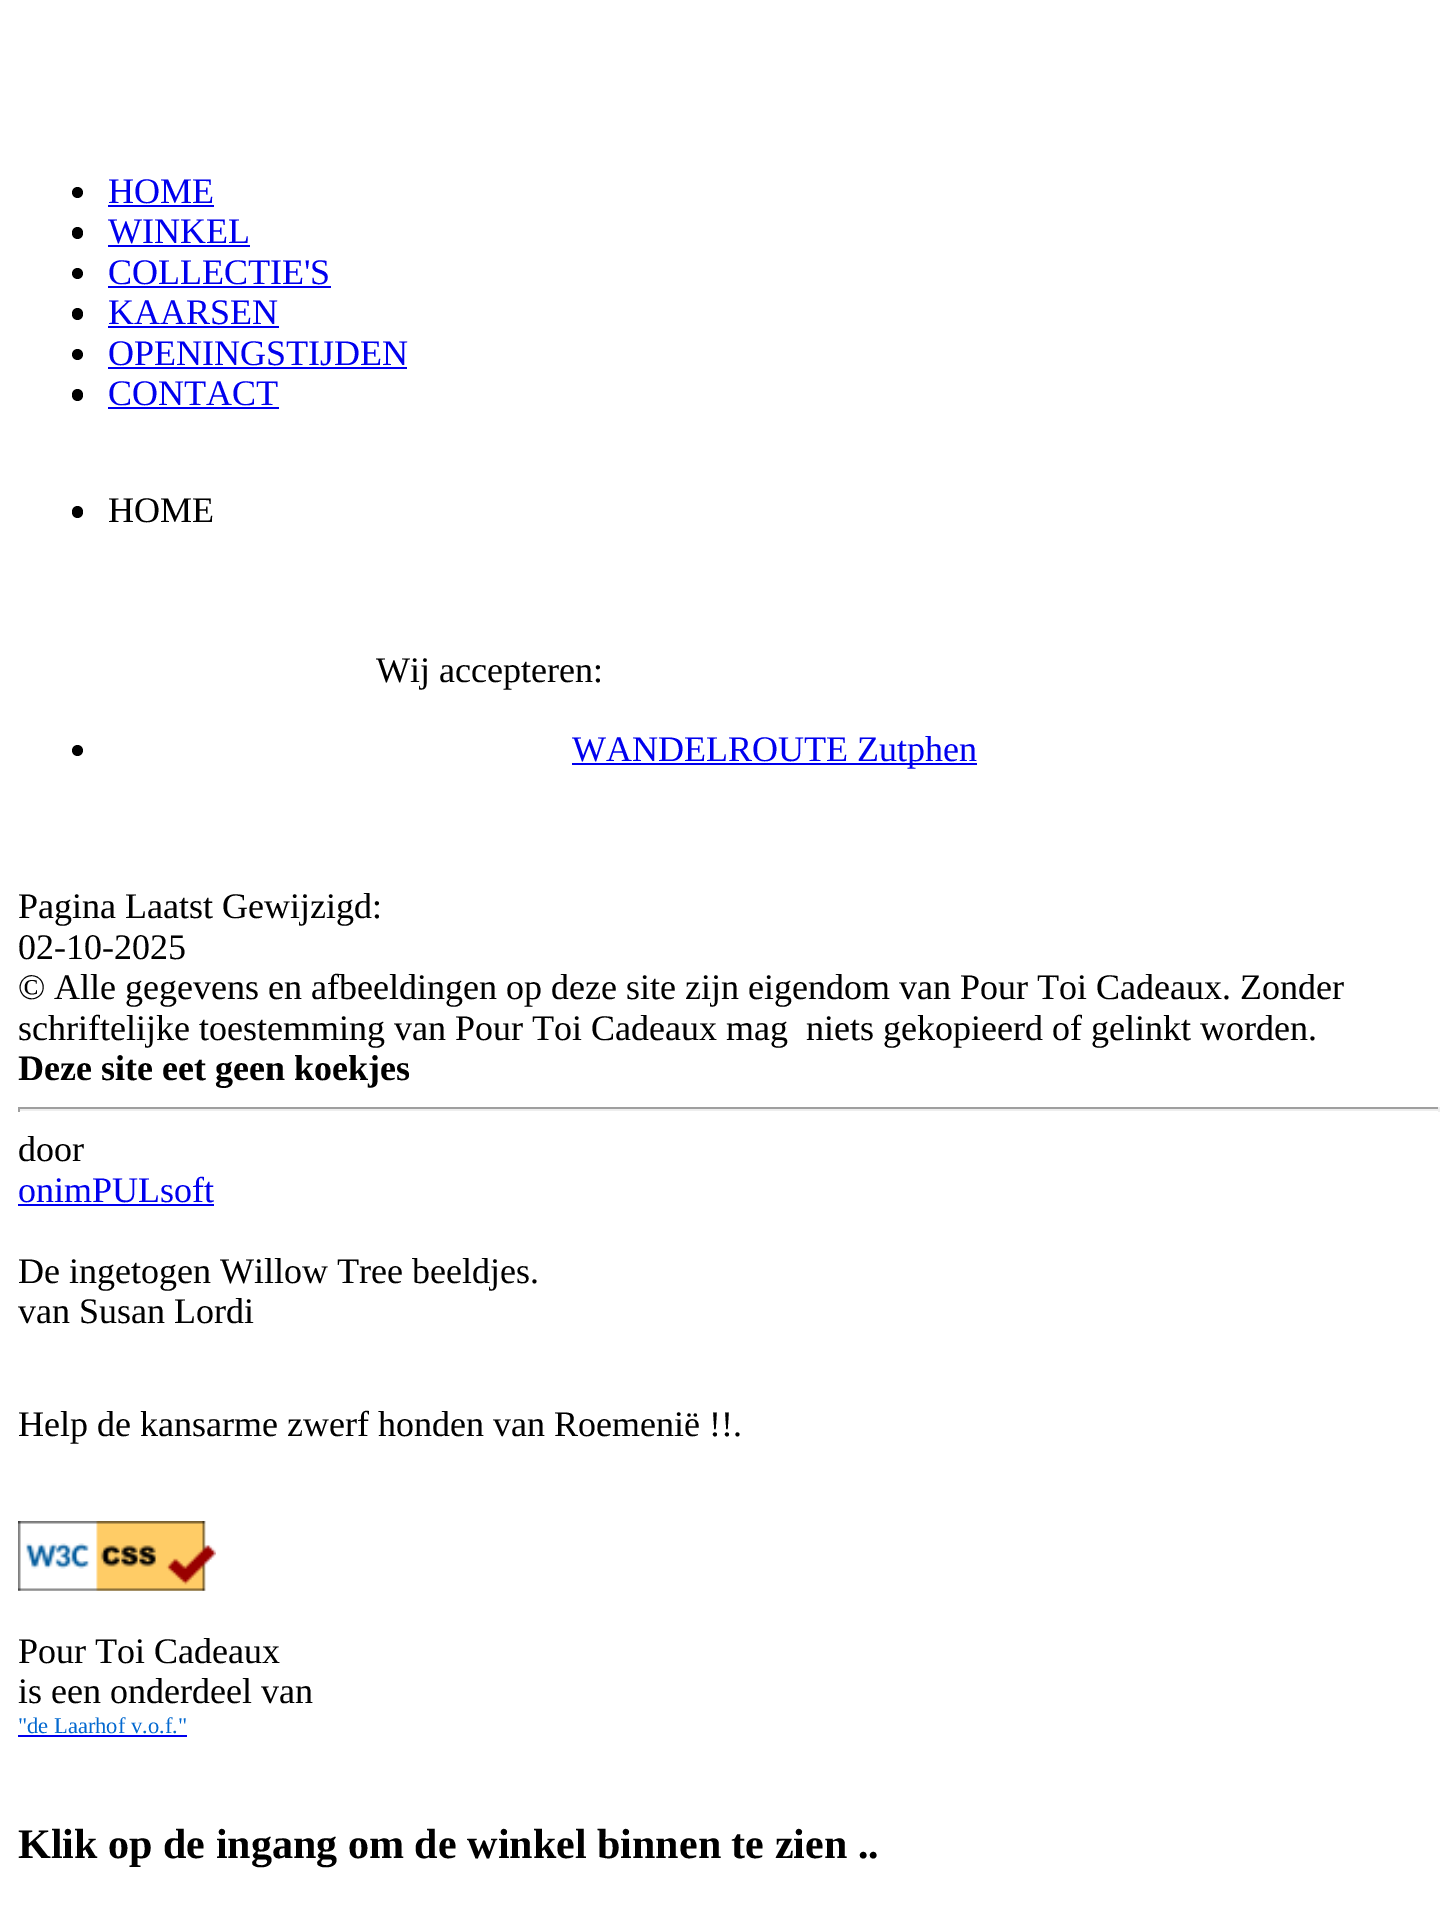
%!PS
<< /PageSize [1456 1927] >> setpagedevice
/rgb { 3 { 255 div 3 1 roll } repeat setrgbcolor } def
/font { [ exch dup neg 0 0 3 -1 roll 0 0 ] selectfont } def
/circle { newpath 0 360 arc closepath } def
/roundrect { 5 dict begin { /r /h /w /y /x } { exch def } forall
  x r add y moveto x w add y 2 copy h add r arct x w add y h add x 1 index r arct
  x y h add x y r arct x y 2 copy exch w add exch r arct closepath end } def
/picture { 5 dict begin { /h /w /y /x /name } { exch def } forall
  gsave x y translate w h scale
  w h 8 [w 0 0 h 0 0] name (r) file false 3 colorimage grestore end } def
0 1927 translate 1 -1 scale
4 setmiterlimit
255 255 255 rgb
0 0 1456 1927 rectfill
0 0 0 rgb
77.5 192.5 5.5 circle fill
0 0 238 rgb
108 205 106 2 rectfill
0 0 0 rgb
72 227 11 12 5.5 roundrect fill
0 0 238 rgb
108 245 142 2 rectfill
0 0 0 rgb
77.5 273.5 5.5 circle fill
0 0 238 rgb
108 286 223 2 rectfill
0 0 0 rgb
72 308 11 12 5.5 roundrect fill
0 0 238 rgb
108 326 171 2 rectfill
0 0 0 rgb
77.5 354.5 5.5 circle fill
0 0 238 rgb
108 367 299 2 rectfill
0 0 0 rgb
72 389 11 12 5.5 roundrect fill
0 0 238 rgb
108 407 171 2 rectfill
0 0 0 rgb
72 506 11 12 5.5 roundrect fill
77.5 750.5 5.5 circle fill
[
  [572 763 405 2 0 0 238]
  [18 1107 1422 2 159 159 159]
  [1438 1107 2 5 238 238 238]
  [18 1109 1422 2 238 238 238]
  [18 1107 2 5 159 159 159]
  [18 1204 196 2 0 0 238]
] { aload pop rgb rectfill } forall
(img/1.rgb) 18 1521 198 70 picture
18 1735 169 2 rectfill
/LiberationSerif-Regular 36 font
[
  [(HOME) 108 203]
  [(WINKEL) 108 243]
  [(COLLECTIE'S) 108 284]
  [(KAARSEN) 108 324]
  [(OPENINGSTIJDEN) 108 365]
  [(CONTACT) 108 405]
] { aload pop moveto show } forall
0 0 0 rgb
108 522 moveto (HOME) show
376 682 moveto (Wij accepteren:) show
0 0 238 rgb
572 761 moveto (WANDELROUTE Zutphen) show
0 0 0 rgb
[
  [(Pagina Laatst Gewijzigd:) 18 918]
  [(02-10-2025) 18 959]
  [(© Alle gegevens en afbeeldingen op deze site zijn eigendom van Pour Toi Cadeaux. Zonder) 18 999]
  [(schriftelijke toestemming van Pour Toi Cadeaux mag  niets gekopieerd of gelinkt worden.) 18 1040]
] { aload pop moveto show } forall
/LiberationSerif-Bold 36 font
18 1080 moveto (Deze site eet geen koekjes) show
/LiberationSerif-Regular 36 font
18 1161 moveto (door) show
0 0 238 rgb
18 1202 moveto (onimPULsoft) show
0 0 0 rgb
[
  [(De ingetogen Willow Tree beeldjes.) 18 1283]
  [(van Susan Lordi) 18 1323]
  [(Help de kansarme zwerf honden van Roemenië !!.) 18 1436]
  [(Pour Toi Cadeaux) 18 1663]
  [(is een onderdeel van) 18 1703]
] { aload pop moveto show } forall
/LiberationSerif-Regular 22.5 font
2 104 208 rgb
18 1733 moveto ("de Laarhof v.o.f.") show
/LiberationSerif-Bold 42.1 font
0 0 0 rgb
18 1858 moveto (Klik op de ingang om de winkel binnen te zien ..) show
showpage
